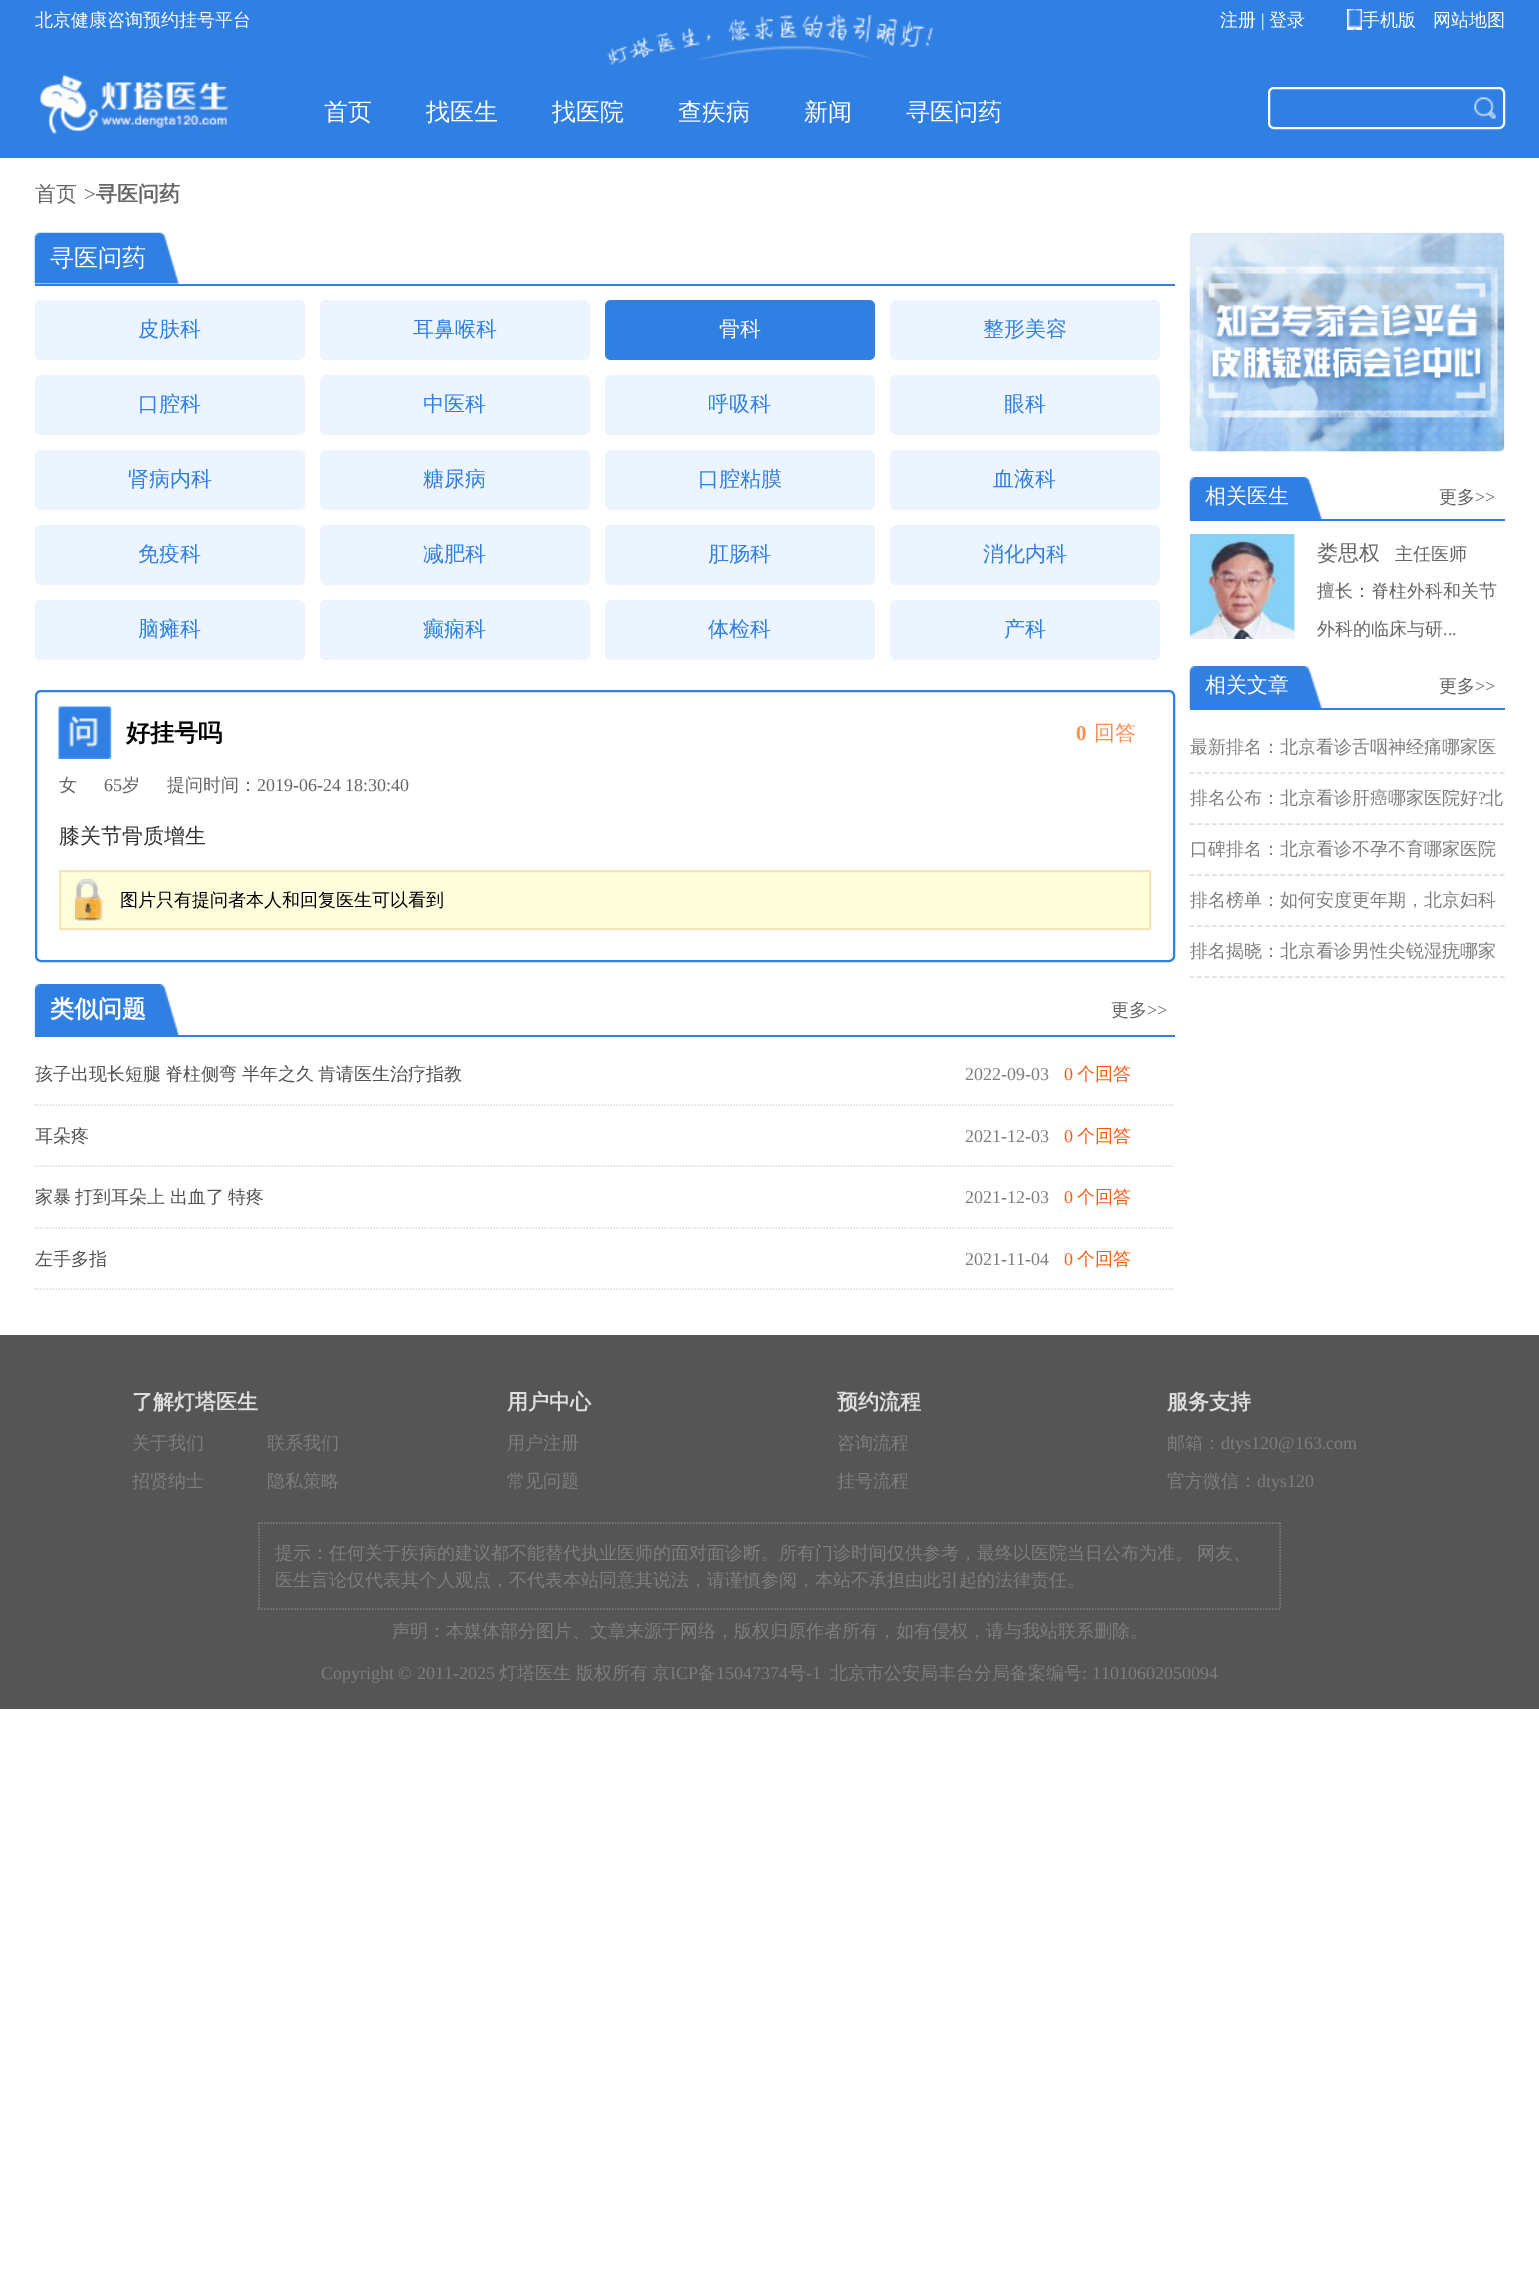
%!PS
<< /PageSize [1539 2278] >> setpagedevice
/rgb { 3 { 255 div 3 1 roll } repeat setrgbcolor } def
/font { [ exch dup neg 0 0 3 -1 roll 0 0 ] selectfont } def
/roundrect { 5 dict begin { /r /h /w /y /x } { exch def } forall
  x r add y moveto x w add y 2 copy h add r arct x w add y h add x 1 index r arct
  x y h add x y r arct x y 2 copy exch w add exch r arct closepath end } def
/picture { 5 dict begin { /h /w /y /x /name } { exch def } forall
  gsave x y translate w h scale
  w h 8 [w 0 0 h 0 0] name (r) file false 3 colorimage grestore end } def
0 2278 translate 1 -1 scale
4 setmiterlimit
255 255 255 rgb
0 0 1539 2278 rectfill
48 127 226 rgb
0 0 1539 158 rectfill
(img/1.rgb) 607 13 326 52 picture
(img/2.rgb) 1347 9 15 21 picture
(img/3.rgb) 40 74 189 60 picture
255 255 255 rgb
2 setlinewidth
1269 88 235 40 5 roundrect stroke
(img/4.rgb) 1474 97 22 22 picture
48 127 226 rgb
35 284 1140 2 rectfill
(img/5.rgb) 34 232 145 52 picture
236 244 255 rgb
35 300 270 60 6 roundrect fill
320 300 270 60 6 roundrect fill
48 127 226 rgb
605 300 270 60 6 roundrect fill
236 244 255 rgb
890 300 270 60 6 roundrect fill
35 375 270 60 6 roundrect fill
320 375 270 60 6 roundrect fill
605 375 270 60 6 roundrect fill
890 375 270 60 6 roundrect fill
35 450 270 60 6 roundrect fill
320 450 270 60 6 roundrect fill
605 450 270 60 6 roundrect fill
890 450 270 60 6 roundrect fill
35 525 270 60 6 roundrect fill
320 525 270 60 6 roundrect fill
605 525 270 60 6 roundrect fill
890 525 270 60 6 roundrect fill
35 600 270 60 6 roundrect fill
320 600 270 60 6 roundrect fill
605 600 270 60 6 roundrect fill
890 600 270 60 6 roundrect fill
48 127 226 rgb
36 691 1138 270 5 roundrect stroke
(img/6.rgb) 58 706 54 53 picture
254 254 220 rgb
61 872 1088 56 rectfill
(img/7.rgb) 75 879 29 42 picture
244 229 183 rgb
60 871 1090 58 rectstroke
48 127 226 rgb
35 1035 1140 2 rectfill
(img/8.rgb) 34 984 145 51 picture
223 223 223 rgb
1.5 setlinewidth
[1.5 1.5] 0 setdash
34.5 1105 moveto 1174.5 1105 lineto stroke
34.5 1166 moveto 1174.5 1166 lineto stroke
34.5 1228 moveto 1174.5 1228 lineto stroke
34.5 1289 moveto 1174.5 1289 lineto stroke
(img/9.rgb) 1189 232 316 220 picture
48 127 226 rgb
1190 519 315 2 rectfill
(img/10.rgb) 1189 477 133 42 picture
(img/11.rgb) 1189 534 106 105 picture
1190 708 315 2 rectfill
(img/10.rgb) 1189 666 133 42 picture
223 223 223 rgb
[4.5 3.07] 0 setdash
1189.5 773 moveto 1504.5 773 lineto stroke
1189.5 824 moveto 1504.5 824 lineto stroke
1189.5 875 moveto 1504.5 875 lineto stroke
1189.5 926 moveto 1504.5 926 lineto stroke
1189.5 977 moveto 1504.5 977 lineto stroke
85 85 85 rgb
0 1335 1539 374 rectfill
124 124 124 rgb
[1.5 1.5] 0 setdash
258 1523 moveto 1281 1523 lineto stroke
1280 1522.5 moveto 1280 1609.5 lineto stroke
258 1609 moveto 1281 1609 lineto stroke
259 1522.5 moveto 259 1609.5 lineto stroke
/WenQuanYiZenHei-Medium 18 font
255 255 255 rgb
35 26 moveto (北京健康咨询预约挂号平台) show
1220 26 moveto (注册) show
/LiberationSerif-Regular 18 font
1261 26 moveto (|) show
/WenQuanYiZenHei-Medium 18 font
[
  [(登录) 1269 26]
  [(手机版) 1362 26]
  [(网站地图) 1433 26]
] { aload pop moveto show } forall
/WenQuanYiZenHei-Medium 24 font
[
  [(首页) 324 120]
  [(找医生) 426 120]
  [(找医院) 552 120]
  [(查疾病) 678 120]
  [(新闻) 804 120]
  [(寻医问药) 906 120]
] { aload pop moveto show } forall
/WenQuanYiZenHei-Medium 21 font
102 102 102 rgb
35 201 moveto (首页) show
/LiberationSerif-Regular 21 font
95 95 95 rgb
84 201 moveto (>) show
/WenQuanYiZenHei-Bold 21 font
102 102 102 rgb
96 201 moveto (寻医问药) show
/WenQuanYiZenHei-Medium 24 font
255 255 255 rgb
50 266 moveto (寻医问药) show
/WenQuanYiZenHei-Medium 21 font
48 127 226 rgb
138 336 moveto (皮肤科) show
413 336 moveto (耳鼻喉科) show
255 255 255 rgb
719 336 moveto (骨科) show
48 127 226 rgb
[
  [(整形美容) 983 336]
  [(口腔科) 138 411]
  [(中医科) 423 411]
  [(呼吸科) 708 411]
  [(眼科) 1004 411]
  [(肾病内科) 128 486]
  [(糖尿病) 423 486]
  [(口腔粘膜) 698 486]
  [(血液科) 993 486]
  [(免疫科) 138 561]
  [(减肥科) 423 561]
  [(肛肠科) 708 561]
  [(消化内科) 983 561]
  [(脑瘫科) 138 636]
  [(癫痫科) 423 636]
  [(体检科) 708 636]
  [(产科) 1004 636]
] { aload pop moveto show } forall
/WenQuanYiZenHei-Bold 24 font
0 0 0 rgb
126 741 moveto (好挂号吗) show
/LiberationSerif-Bold 21 font
255 142 80 rgb
1076 740 moveto (0) show
/WenQuanYiZenHei-Medium 21 font
1094 740 moveto (回答) show
/WenQuanYiZenHei-Medium 18 font
102 102 102 rgb
59 791 moveto (女) show
/LiberationSerif-Regular 18 font
104 791 moveto (65) show
/WenQuanYiZenHei-Medium 18 font
122 791 moveto (岁) show
167 791 moveto (提问时间：) show
/LiberationSerif-Regular 18 font
257 791 moveto (2019-06-24 18:30:40) show
/WenQuanYiZenHei-Medium 21 font
51 51 51 rgb
59 843 moveto (膝关节骨质增生) show
/WenQuanYiZenHei-Medium 18 font
0 0 0 rgb
120 906 moveto (图片只有提问者本人和回复医生可以看到) show
/WenQuanYiZenHei-Bold 24 font
255 255 255 rgb
50 1017 moveto (类似问题) show
/WenQuanYiZenHei-Medium 18 font
102 102 102 rgb
1111 1016 moveto (更多) show
/LiberationSerif-Regular 18 font
1147 1016 moveto (>>) show
/WenQuanYiZenHei-Medium 18 font
82 82 82 rgb
35 1080 moveto -1 0 32 (孩子出现长短腿 脊柱侧弯 半年之久 肯请医生治疗指教) widthshow
/LiberationSerif-Regular 18 font
126 126 126 rgb
965 1080 moveto (2022-09-03) show
255 90 17 rgb
1064 1080 moveto (0) show
/WenQuanYiZenHei-Medium 18 font
1077 1080 moveto (个回答) show
82 82 82 rgb
35 1142 moveto (耳朵疼) show
/LiberationSerif-Regular 18 font
126 126 126 rgb
965 1142 moveto (2021-12-03) show
255 90 17 rgb
1064 1142 moveto (0) show
/WenQuanYiZenHei-Medium 18 font
1077 1142 moveto (个回答) show
82 82 82 rgb
[
  [(家暴) 35 1203]
  [(打到耳朵上) 75 1203]
  [(出血了) 170 1203]
  [(特疼) 228 1203]
] { aload pop moveto show } forall
/LiberationSerif-Regular 18 font
126 126 126 rgb
965 1203 moveto (2021-12-03) show
255 90 17 rgb
1064 1203 moveto (0) show
/WenQuanYiZenHei-Medium 18 font
1077 1203 moveto (个回答) show
82 82 82 rgb
35 1265 moveto (左手多指) show
/LiberationSerif-Regular 18 font
126 126 126 rgb
965 1265 moveto (2021-11-04) show
255 90 17 rgb
1064 1265 moveto (0) show
/WenQuanYiZenHei-Medium 18 font
1077 1265 moveto (个回答) show
/WenQuanYiZenHei-Medium 21 font
255 255 255 rgb
1205 503 moveto (相关医生) show
/WenQuanYiZenHei-Medium 18 font
102 102 102 rgb
1439 503 moveto (更多) show
/LiberationSerif-Regular 18 font
1475 503 moveto (>>) show
/WenQuanYiZenHei-Medium 21 font
1317 560 moveto (娄思权) show
/WenQuanYiZenHei-Medium 18 font
[
  [(主任医师) 1395 560]
  [(擅长：脊柱外科和关节) 1317 597]
  [(外科的临床与研) 1317 635]
] { aload pop moveto show } forall
/LiberationSerif-Regular 18 font
1443 635 moveto (...) show
/WenQuanYiZenHei-Medium 21 font
255 255 255 rgb
1205 692 moveto (相关文章) show
/WenQuanYiZenHei-Medium 18 font
102 102 102 rgb
1439 692 moveto (更多) show
/LiberationSerif-Regular 18 font
1475 692 moveto (>>) show
/WenQuanYiZenHei-Medium 18 font
126 126 126 rgb
1190 753 moveto (最新排名：北京看诊舌咽神经痛哪家医) show
1190 804 moveto (排名公布：北京看诊肝癌哪家医院好) show
/LiberationSerif-Regular 18 font
1478 804 moveto (?) show
/WenQuanYiZenHei-Medium 18 font
[
  [(北) 1485 804]
  [(口碑排名：北京看诊不孕不育哪家医院) 1190 855]
  [(排名榜单：如何安度更年期，北京妇科) 1190 906]
  [(排名揭晓：北京看诊男性尖锐湿疣哪家) 1190 957]
] { aload pop moveto show } forall
/WenQuanYiZenHei-Bold 21 font
222 222 222 rgb
132 1409 moveto (了解灯塔医生) show
/WenQuanYiZenHei-Medium 18 font
126 126 126 rgb
[
  [(关于我们) 132 1449]
  [(联系我们) 267 1449]
  [(招贤纳士) 132 1487]
  [(隐私策略) 267 1487]
] { aload pop moveto show } forall
/WenQuanYiZenHei-Bold 21 font
222 222 222 rgb
507 1409 moveto (用户中心) show
/WenQuanYiZenHei-Medium 18 font
126 126 126 rgb
507 1449 moveto (用户注册) show
507 1487 moveto (常见问题) show
/WenQuanYiZenHei-Bold 21 font
222 222 222 rgb
837 1409 moveto (预约流程) show
/WenQuanYiZenHei-Medium 18 font
126 126 126 rgb
837 1449 moveto (咨询流程) show
837 1487 moveto (挂号流程) show
/WenQuanYiZenHei-Bold 21 font
222 222 222 rgb
1167 1409 moveto (服务支持) show
/WenQuanYiZenHei-Medium 18 font
126 126 126 rgb
1167 1449 moveto (邮箱：) show
/LiberationSerif-Regular 18 font
1221 1449 moveto (dtys120@163.com) show
/WenQuanYiZenHei-Medium 18 font
1167 1487 moveto (官方微信：) show
/LiberationSerif-Regular 18 font
1257 1487 moveto (dtys120) show
/WenQuanYiZenHei-Medium 18 font
[
  [(提示：任何关于疾病的建议都不能替代执业医师的面对面诊断。所有门诊时间仅供参考，最终以医院当日公布为准。) 275 1559]
  [(网友、) 1197 1559]
  [(医生言论仅代表其个人观点，不代表本站同意其说法，请谨慎参阅，本站不承担由此引起的法律责任。) 275 1586]
  [(声明：本媒体部分图片、文章来源于网络，版权归原作者所有，如有侵权，请与我站联系删除。) 392 1637]
] { aload pop moveto show } forall
/LiberationSerif-Regular 18 font
321 1679 moveto (Copyright © 2011-2025) show
/WenQuanYiZenHei-Medium 18 font
[
  [(灯塔医生) 499 1679]
  [(版权所有) 576 1679]
  [(京) 652 1679]
] { aload pop moveto show } forall
/LiberationSerif-Regular 18 font
670 1679 moveto (ICP) show
/WenQuanYiZenHei-Medium 18 font
698 1679 moveto (备) show
/LiberationSerif-Regular 18 font
716 1679 moveto (15047374) show
/WenQuanYiZenHei-Medium 18 font
788 1679 moveto (号) show
/LiberationSerif-Regular 18 font
806 1679 moveto (-1) show
/WenQuanYiZenHei-Medium 18 font
830 1679 moveto (北京市公安局丰台分局备案编号) show
/LiberationSerif-Regular 18 font
1082 1679 moveto (: 11010602050094) show
showpage
